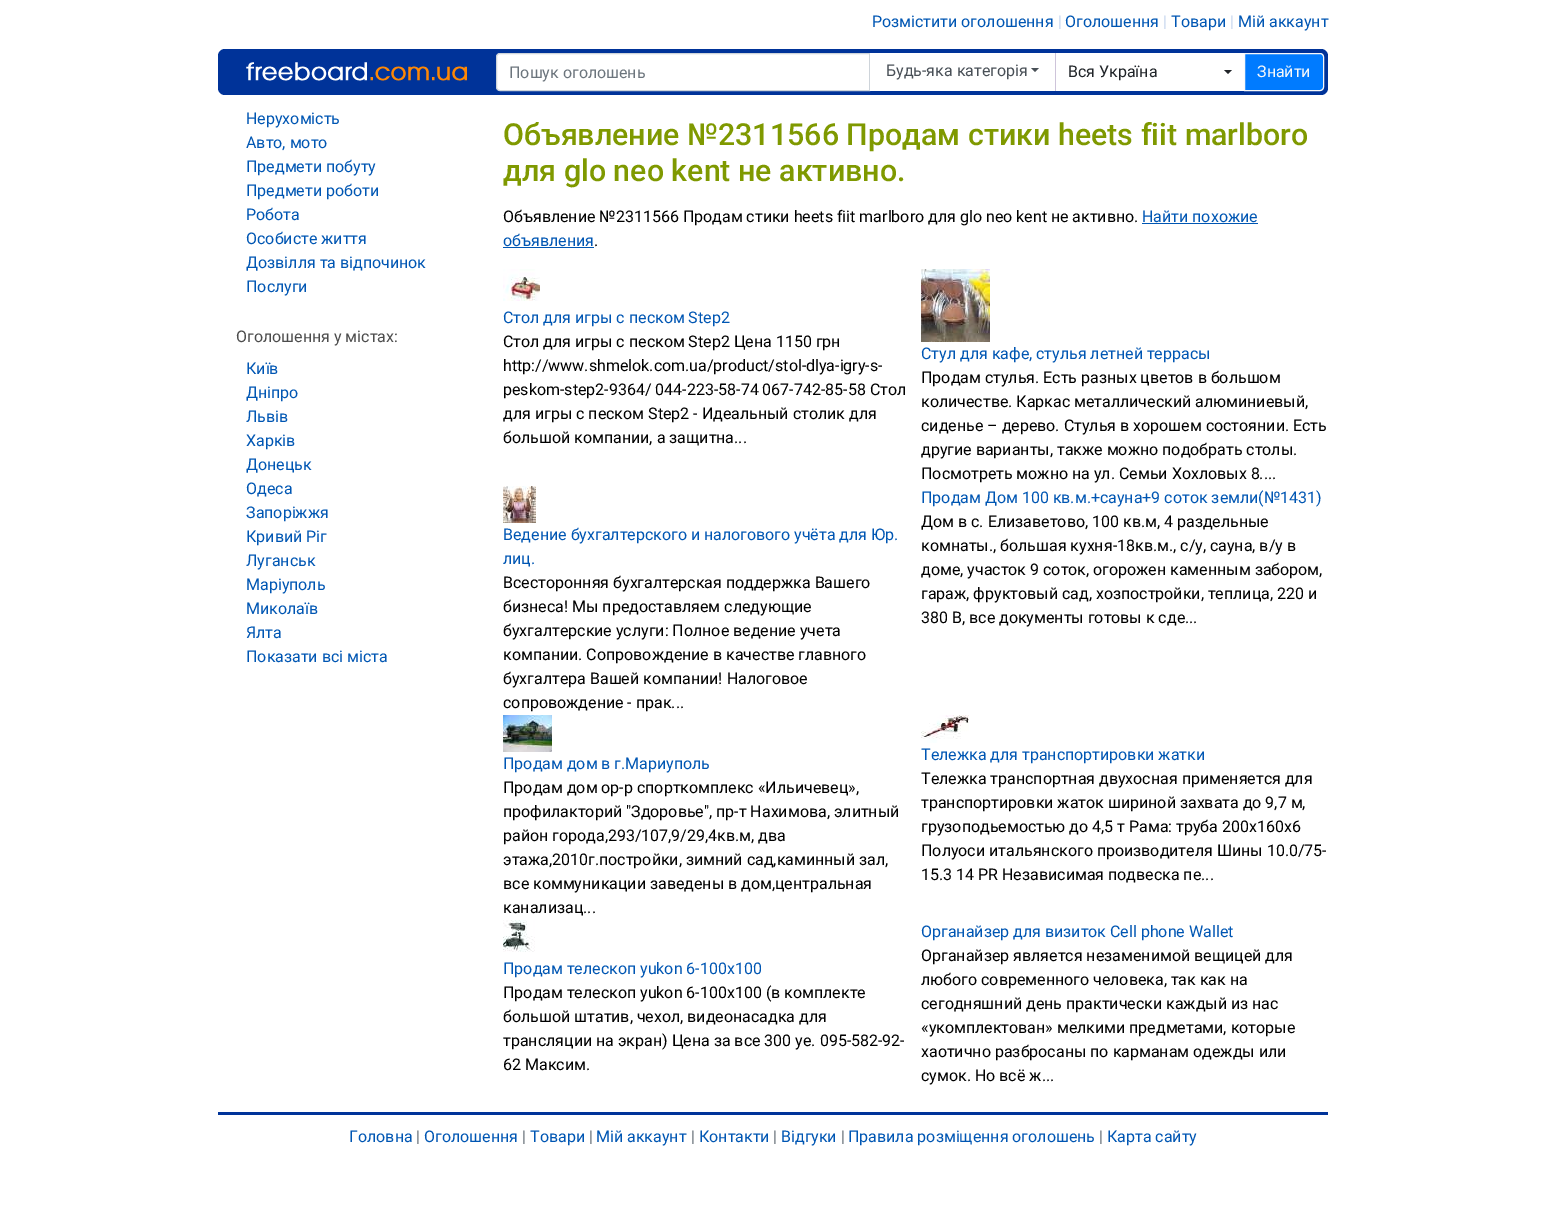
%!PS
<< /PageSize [1546 1205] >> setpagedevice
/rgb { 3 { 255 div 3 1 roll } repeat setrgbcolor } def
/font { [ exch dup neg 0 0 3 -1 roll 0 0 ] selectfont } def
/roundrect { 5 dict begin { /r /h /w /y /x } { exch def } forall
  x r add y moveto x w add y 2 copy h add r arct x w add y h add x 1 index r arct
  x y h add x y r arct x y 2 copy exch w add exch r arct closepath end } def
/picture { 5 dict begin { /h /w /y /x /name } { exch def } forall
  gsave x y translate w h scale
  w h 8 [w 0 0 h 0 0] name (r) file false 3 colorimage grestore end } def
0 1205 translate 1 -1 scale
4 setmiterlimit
255 255 255 rgb
0 0 1546 1205 rectfill
0 51 153 rgb
218 49 1110 46 7 roundrect fill
(img/1.rgb) 246 62 221 19 picture
255 255 255 rgb
500 53.5 moveto 869.5 53.5 lineto 869.5 90.5 lineto 500 90.5 lineto 498 90.5 496.5 89 496.5 87 curveto 496.5 57 lineto 496.5 55 498 53.5 500 53.5 curveto closepath gsave fill grestore
206 212 218 rgb
stroke
255 255 255 rgb
870 53 185 38 rectfill
73 80 87 rgb
1031 68 moveto 1039 68 lineto 1035 72 lineto closepath fill
255 255 255 rgb
1056 53 188 38 rectfill
206 196 218 rgb
1055 53 1 38 rectfill
33 37 41 rgb
1224 70 moveto 1232 70 lineto 1228 74 lineto closepath fill
0 123 255 rgb
1244.5 53.5 moveto 1320 53.5 lineto 1322 53.5 1323.5 55 1323.5 57 curveto 1323.5 87 lineto 1323.5 89 1322 90.5 1320 90.5 curveto 1244.5 90.5 lineto closepath gsave fill grestore
248 249 250 rgb
stroke
0 86 179 rgb
1142 223 116 1 rectfill
503 247 91 1 rectfill
(img/2.rgb) 503 269 37 32 picture
(img/3.rgb) 921 269 69 73 picture
(img/4.rgb) 503 486 33 37 picture
(img/5.rgb) 503 715 49 37 picture
(img/6.rgb) 921 715 48 28 picture
(img/7.rgb) 503 920 32 32 picture
0 51 153 rgb
218 1112 1110 3 rectfill
/Roboto-Regular 16 font
0 86 179 rgb
872 27 moveto (Розмістити оголошення) show
201 216 239 rgb
1058 27 moveto (|) show
0 86 179 rgb
1065 27 moveto (Оголошення) show
201 216 239 rgb
1163 27 moveto (|) show
0 86 179 rgb
1171 27 moveto (Товари) show
201 216 239 rgb
1230 27 moveto (|) show
0 86 179 rgb
1238 27 moveto (Мій аккаунт) show
108 117 125 rgb
509 78 moveto (Пошук оголошень) show
73 80 87 rgb
886 76 moveto (Будь-яка категорія) show
33 37 41 rgb
1068 77 moveto (Вся Україна) show
248 249 250 rgb
1257 77 moveto (Знайти) show
0 86 179 rgb
[
  [(Нерухомість) 246 124]
  [(Авто, мото) 246 148]
  [(Предмети побуту) 246 172]
  [(Предмети роботи) 246 196]
  [(Робота) 246 220]
  [(Особисте життя) 246 244]
  [(Дозвілля та відпочинок) 246 268]
  [(Послуги) 246 292]
] { aload pop moveto show } forall
77 77 77 rgb
236 342 moveto (Оголошення у містах:) show
0 86 179 rgb
[
  [(Київ) 246 374]
  [(Дніпро) 246 398]
  [(Львів) 246 422]
  [(Харків) 246 446]
  [(Донецьк) 246 470]
  [(Одеса) 246 494]
  [(Запоріжжя) 246 518]
  [(Кривий Ріг) 246 542]
  [(Луганськ) 246 566]
  [(Маріуполь) 246 590]
  [(Миколаїв) 246 614]
  [(Ялта) 246 638]
  [(Показати всі міста) 246 662]
] { aload pop moveto show } forall
/Roboto-Medium 30.4 font
127 153 0 rgb
503 145 moveto (Объявление №2311566 Продам стики heets fiit marlboro) show
503 181 moveto (для glo neo kent не активно.) show
/Roboto-Regular 16 font
0 0 0 rgb
503 222 moveto (Объявление №2311566 Продам стики heets fiit marlboro для glo neo kent не активно.) show
0 86 179 rgb
1142 222 moveto (Найти похожие) show
503 246 moveto (объявления) show
0 0 0 rgb
594 246 moveto (.) show
0 86 179 rgb
503 323 moveto (Стол для игры с песком Step2) show
0 0 0 rgb
[
  [(Стол для игры с песком Step2 Цена 1150 грн) 503 347]
  [(http://www.shmelok.com.ua/product/stol-dlya-igry-s-) 503 371]
  [(peskom-step2-9364/ 044-223-58-74 067-742-85-58 Стол) 503 395]
  [(для игры с песком Step2 - Идеальный столик для) 503 419]
  [(большой компании, а защитна...) 503 443]
] { aload pop moveto show } forall
0 86 179 rgb
921 359 moveto (Стул для кафе, стулья летней террасы) show
0 0 0 rgb
[
  [(Продам стулья. Есть разных цветов в большом) 921 383]
  [(количестве. Каркас металлический алюминиевый,) 921 407]
  [(сиденье – дерево. Стулья в хорошем состоянии. Есть) 921 431]
  [(другие варианты, также можно подобрать столы.) 921 455]
  [(Посмотреть можно на ул. Семьи Хохловых 8....) 921 479]
] { aload pop moveto show } forall
0 86 179 rgb
503 540 moveto (Ведение бухгалтерского и налогового учёта для Юр.) show
503 564 moveto (лиц.) show
0 0 0 rgb
[
  [(Всесторонняя бухгалтерская поддержка Вашего) 503 588]
  [(бизнеса! Мы предоставляем следующие) 503 612]
  [(бухгалтерские услуги: Полное ведение учета) 503 636]
  [(компании. Сопровождение в качестве главного) 503 660]
  [(бухгалтера Вашей компании! Налоговое) 503 684]
  [(сопровождение - прак...) 503 708]
] { aload pop moveto show } forall
0 86 179 rgb
921 503 moveto (Продам Дом 100 кв.м.+сауна+9 соток земли\(№1431\)) show
0 0 0 rgb
[
  [(Дом в с. Елизаветово, 100 кв.м, 4 раздельные) 921 527]
  [(комнаты., большая кухня-18кв.м., с/у, сауна, в/у в) 921 551]
  [(доме, участок 9 соток, огорожен каменным забором,) 921 575]
  [(гараж, фруктовый сад, хозпостройки, теплица, 220 и) 921 599]
  [(380 В, все документы готовы к сде...) 921 623]
] { aload pop moveto show } forall
0 86 179 rgb
503 769 moveto (Продам дом в г.Мариуполь) show
0 0 0 rgb
[
  [(Продам дом ор-р спорткомплекс «Ильичевец»,) 503 793]
  [(профилакторий "Здоровье", пр-т Нахимова, элитный) 503 817]
  [(район города,293/107,9/29,4кв.м, два) 503 841]
  [(этажа,2010г.постройки, зимний сад,каминный зал,) 503 865]
  [(все коммуникации заведены в дом,центральная) 503 889]
  [(канализац...) 503 913]
] { aload pop moveto show } forall
0 86 179 rgb
921 760 moveto (Тележка для транспортировки жатки) show
0 0 0 rgb
[
  [(Тележка транспортная двухосная применяется для) 921 784]
  [(транспортировки жаток шириной захвата до 9,7 м,) 921 808]
  [(грузоподьемостью до 4,5 т Рама: труба 200х160х6) 921 832]
  [(Полуоси итальянского производителя Шины 10.0/75-) 921 856]
  [(15.3 14 PR Независимая подвеска пе...) 921 880]
] { aload pop moveto show } forall
0 86 179 rgb
503 974 moveto (Продам телескоп yukon 6-100x100) show
0 0 0 rgb
[
  [(Продам телескоп yukon 6-100x100 \(в комплекте) 503 998]
  [(большой штатив, чехол, видеонасадка для) 503 1022]
  [(трансляции на экран\) Цена за все 300 уе. 095-582-92-) 503 1046]
  [(62 Максим.) 503 1070]
] { aload pop moveto show } forall
0 86 179 rgb
921 937 moveto (Органайзер для визиток Cell phone Wallet) show
0 0 0 rgb
[
  [(Органайзер является незаменимой вещицей для) 921 961]
  [(любого современного человека, так как на) 921 985]
  [(сегодняшний день практически каждый из нас) 921 1009]
  [(«укомплектован» мелкими предметами, которые) 921 1033]
  [(хаотично разбросаны по карманам одежды или) 921 1057]
  [(сумок. Но всё ж...) 921 1081]
] { aload pop moveto show } forall
0 86 179 rgb
349 1142 moveto (Головна) show
108 117 125 rgb
416 1142 moveto (|) show
0 86 179 rgb
424 1142 moveto (Оголошення) show
108 117 125 rgb
522 1142 moveto (|) show
0 86 179 rgb
530 1142 moveto (Товари) show
108 117 125 rgb
589 1142 moveto (|) show
0 86 179 rgb
596 1142 moveto (Мій аккаунт) show
108 117 125 rgb
691 1142 moveto (|) show
0 86 179 rgb
699 1142 moveto (Контакти) show
108 117 125 rgb
773 1142 moveto (|) show
0 86 179 rgb
781 1142 moveto (Відгуки) show
108 117 125 rgb
841 1142 moveto (|) show
0 86 179 rgb
848 1142 moveto (Правила розміщення оголошень) show
108 117 125 rgb
1099 1142 moveto (|) show
0 86 179 rgb
1107 1142 moveto (Карта сайту) show
showpage
